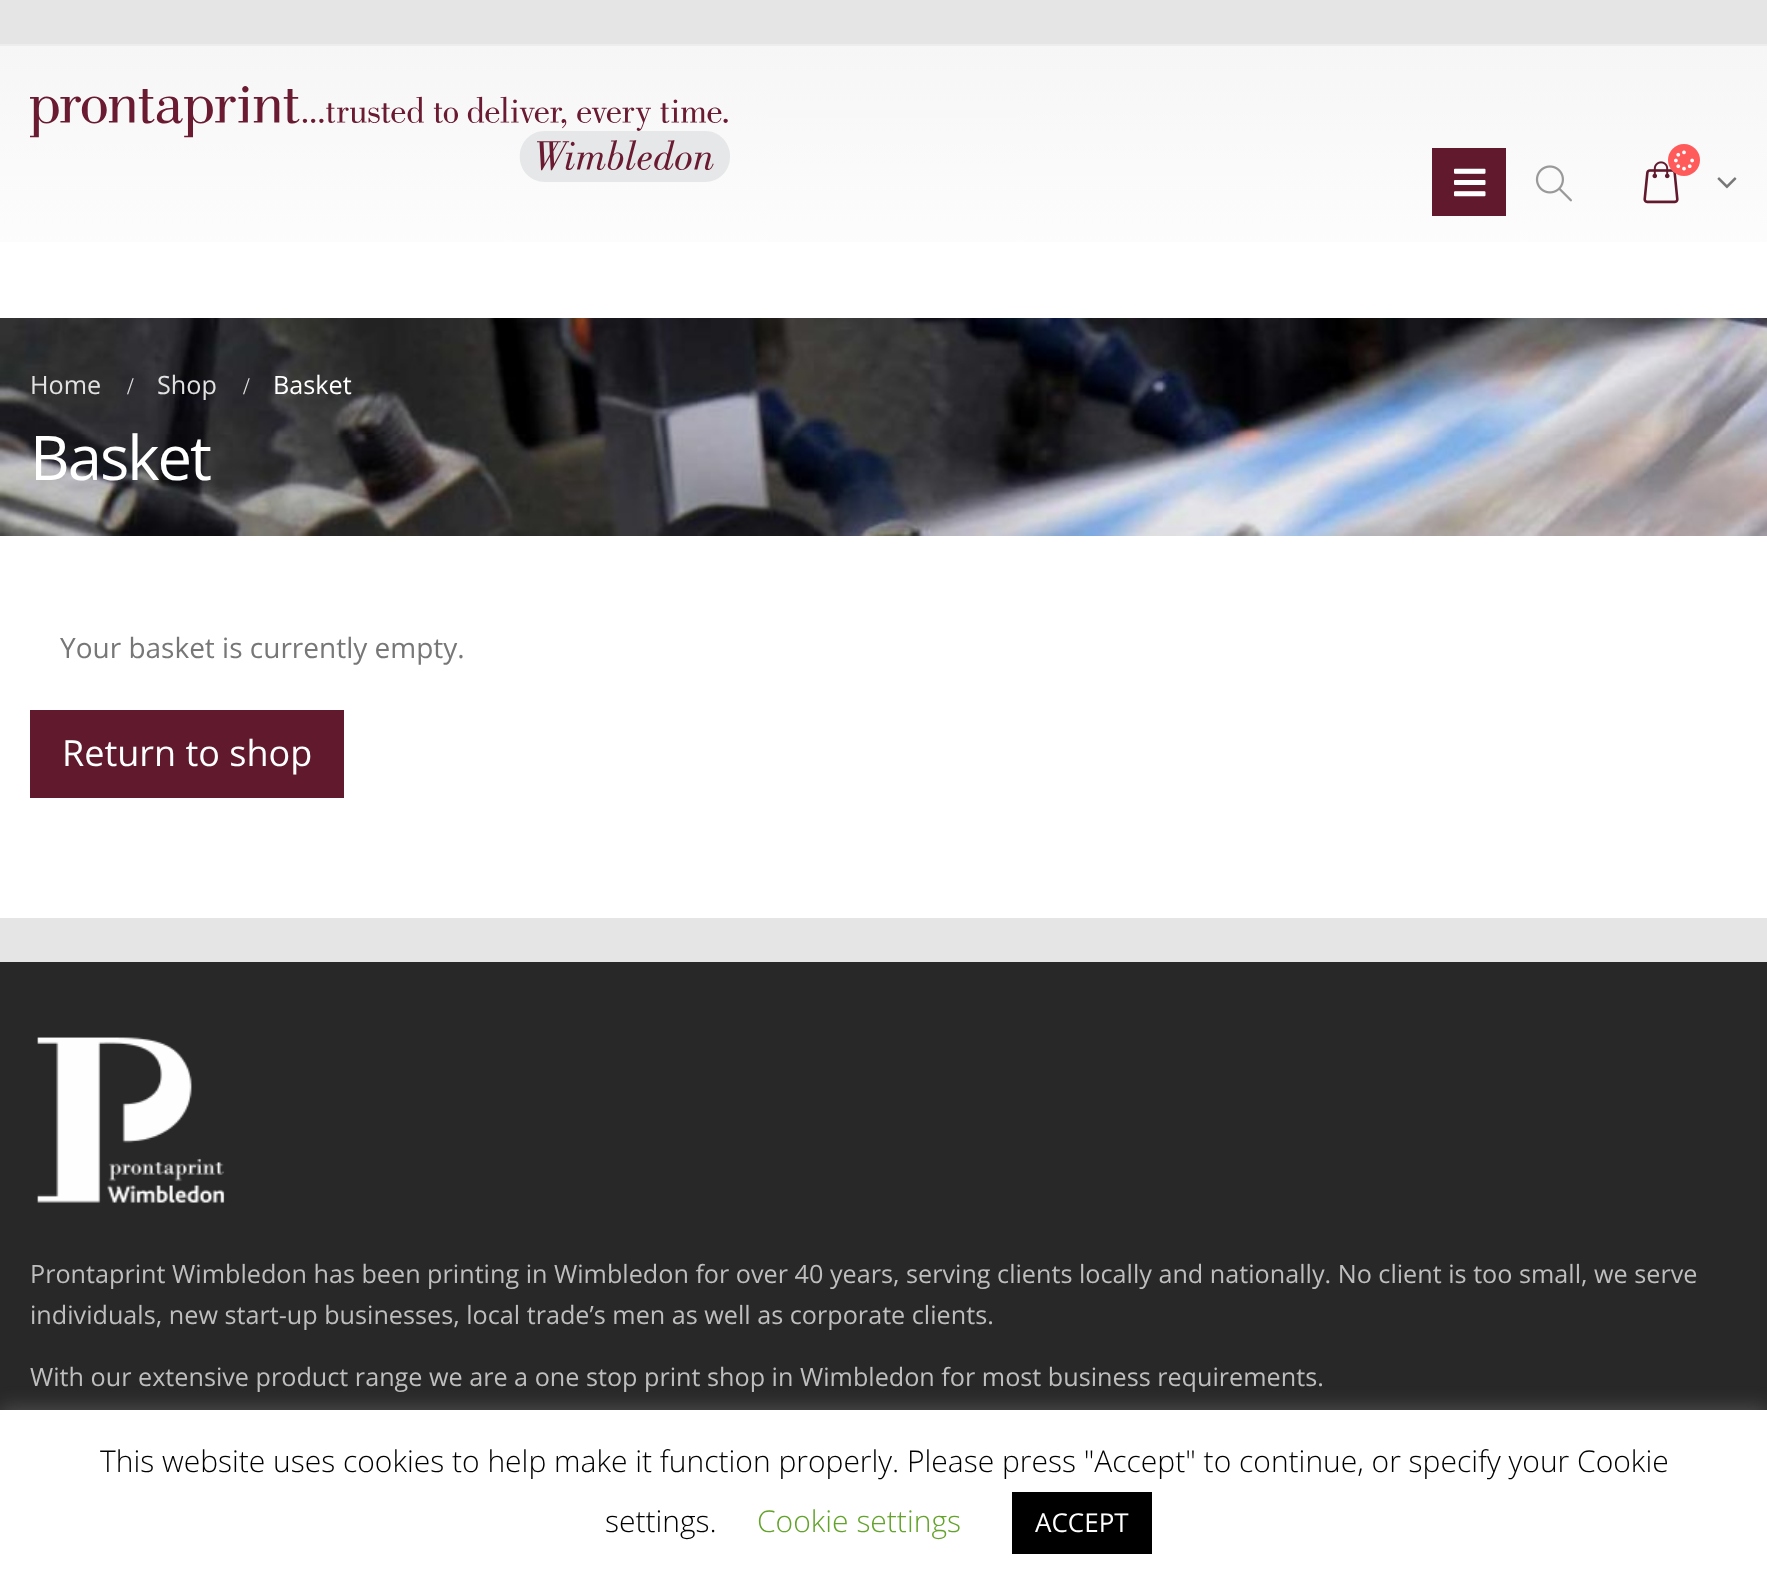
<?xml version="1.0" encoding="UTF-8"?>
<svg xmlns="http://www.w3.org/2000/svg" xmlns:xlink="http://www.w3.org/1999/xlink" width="1767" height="1588">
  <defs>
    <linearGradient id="g1" gradientUnits="userSpaceOnUse" x1="884" y1="46" x2="884" y2="318"><stop offset="0" stop-color="#f6f6f6" /><stop offset="1" stop-color="#ffffff" /></linearGradient>
  </defs>
  <rect width="100%" height="100%" fill="#ffffff" />
  <rect width="1767" height="44" fill="#e5e5e5" />
  <rect y="44" width="1767" height="2" fill="#ededed" />
  <rect y="46" width="1767" height="196" fill="url(#g1)" />
  <image x="30" y="86" width="700" height="96" xlink:href="image1.png" />
  <rect x="1432" y="148" width="74" height="68" fill="#61192d" />
  <image x="1454" y="168" width="32" height="29" xlink:href="image2.png" />
  <image x="1535" y="165" width="37" height="37" xlink:href="image3.png" />
  <image x="1643" y="161" width="36" height="43" xlink:href="image4.png" />
  <circle cx="1684" cy="160" r="16" fill="#ff5b5b" />
  <image x="1674" y="150" width="20" height="21" xlink:href="image5.png" />
  <image x="1717" y="177" width="20" height="12" xlink:href="image6.png" />
  <image x="0" y="318" width="1767" height="218" xlink:href="image7.png" />
  <rect x="30" y="710" width="314" height="88" fill="#61192d" />
  <rect y="918" width="1767" height="44" fill="#e5e5e5" />
  <rect y="962" width="1767" height="448" fill="#282828" />
  <image x="37" y="1037" width="188" height="166" xlink:href="image8.png" />
  <rect y="1408" width="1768" height="178" fill="#acabab" fill-opacity="0.3" filter="blur(10px)" />
  <rect y="1410" width="1767" height="178" fill="#ffffff" />
  <rect x="1012" y="1492" width="140" height="62" fill="#000000" />
  <text x="30" y="394" style="font-family: Open Sans; font-size: 25.2px; fill: #e2e2e2">Home</text>
  <text x="127" y="394" style="font-family: Liberation Serif; font-size: 24px; fill: #e2e2e2">/</text>
  <text x="157" y="394" style="font-family: Open Sans; font-size: 25.2px; fill: #e2e2e2">Shop</text>
  <text x="243" y="394" style="font-family: Liberation Serif; font-size: 24px; fill: #e2e2e2">/</text>
  <text x="273" y="394" style="font-family: Open Sans; font-size: 25.2px; fill: #ffffff">Basket</text>
  <text x="30" y="480" style="font-family: Open Sans; font-size: 61.5px; letter-spacing: -2px; fill: #ffffff">Basket</text>
  <text x="60" y="658" style="font-family: Open Sans; font-size: 28px; fill: #777777">Your basket is currently empty.</text>
  <text x="62" y="766" style="font-family: Open Sans; font-size: 36px; fill: #ffffff">Return to shop</text>
  <text x="30" y="1283" style="font-family: Open Sans; font-size: 25.2px; fill: #bebebe">Prontaprint Wimbledon has been printing in Wimbledon for over 40 years, serving clients locally and nationally. No client is too small, we serve</text>
  <text x="30" y="1324" style="font-family: Open Sans; font-size: 25.2px; fill: #bebebe">individuals, new start-up businesses, local trade’s men as well as corporate clients.</text>
  <text x="30" y="1386" style="font-family: Open Sans; font-size: 25.2px; fill: #bebebe">With our extensive product range we are a one stop print shop in Wimbledon for most business requirements.</text>
  <text x="100" y="1472" style="font-family: Open Sans; font-size: 30px; font-weight: 300; fill: #000000">This website uses cookies to help make it function properly. Please press "Accept" to continue, or specify your Cookie</text>
  <text x="605" y="1532" style="font-family: Open Sans; font-size: 30px; font-weight: 300; fill: #000000">settings.</text>
  <text x="757" y="1532" style="font-family: Open Sans; font-size: 30px; font-weight: 300; fill: #62a329">Cookie settings</text>
  <text x="1035" y="1532" style="font-family: Open Sans; font-size: 26px; fill: #ffffff">ACCEPT</text>
</svg>
